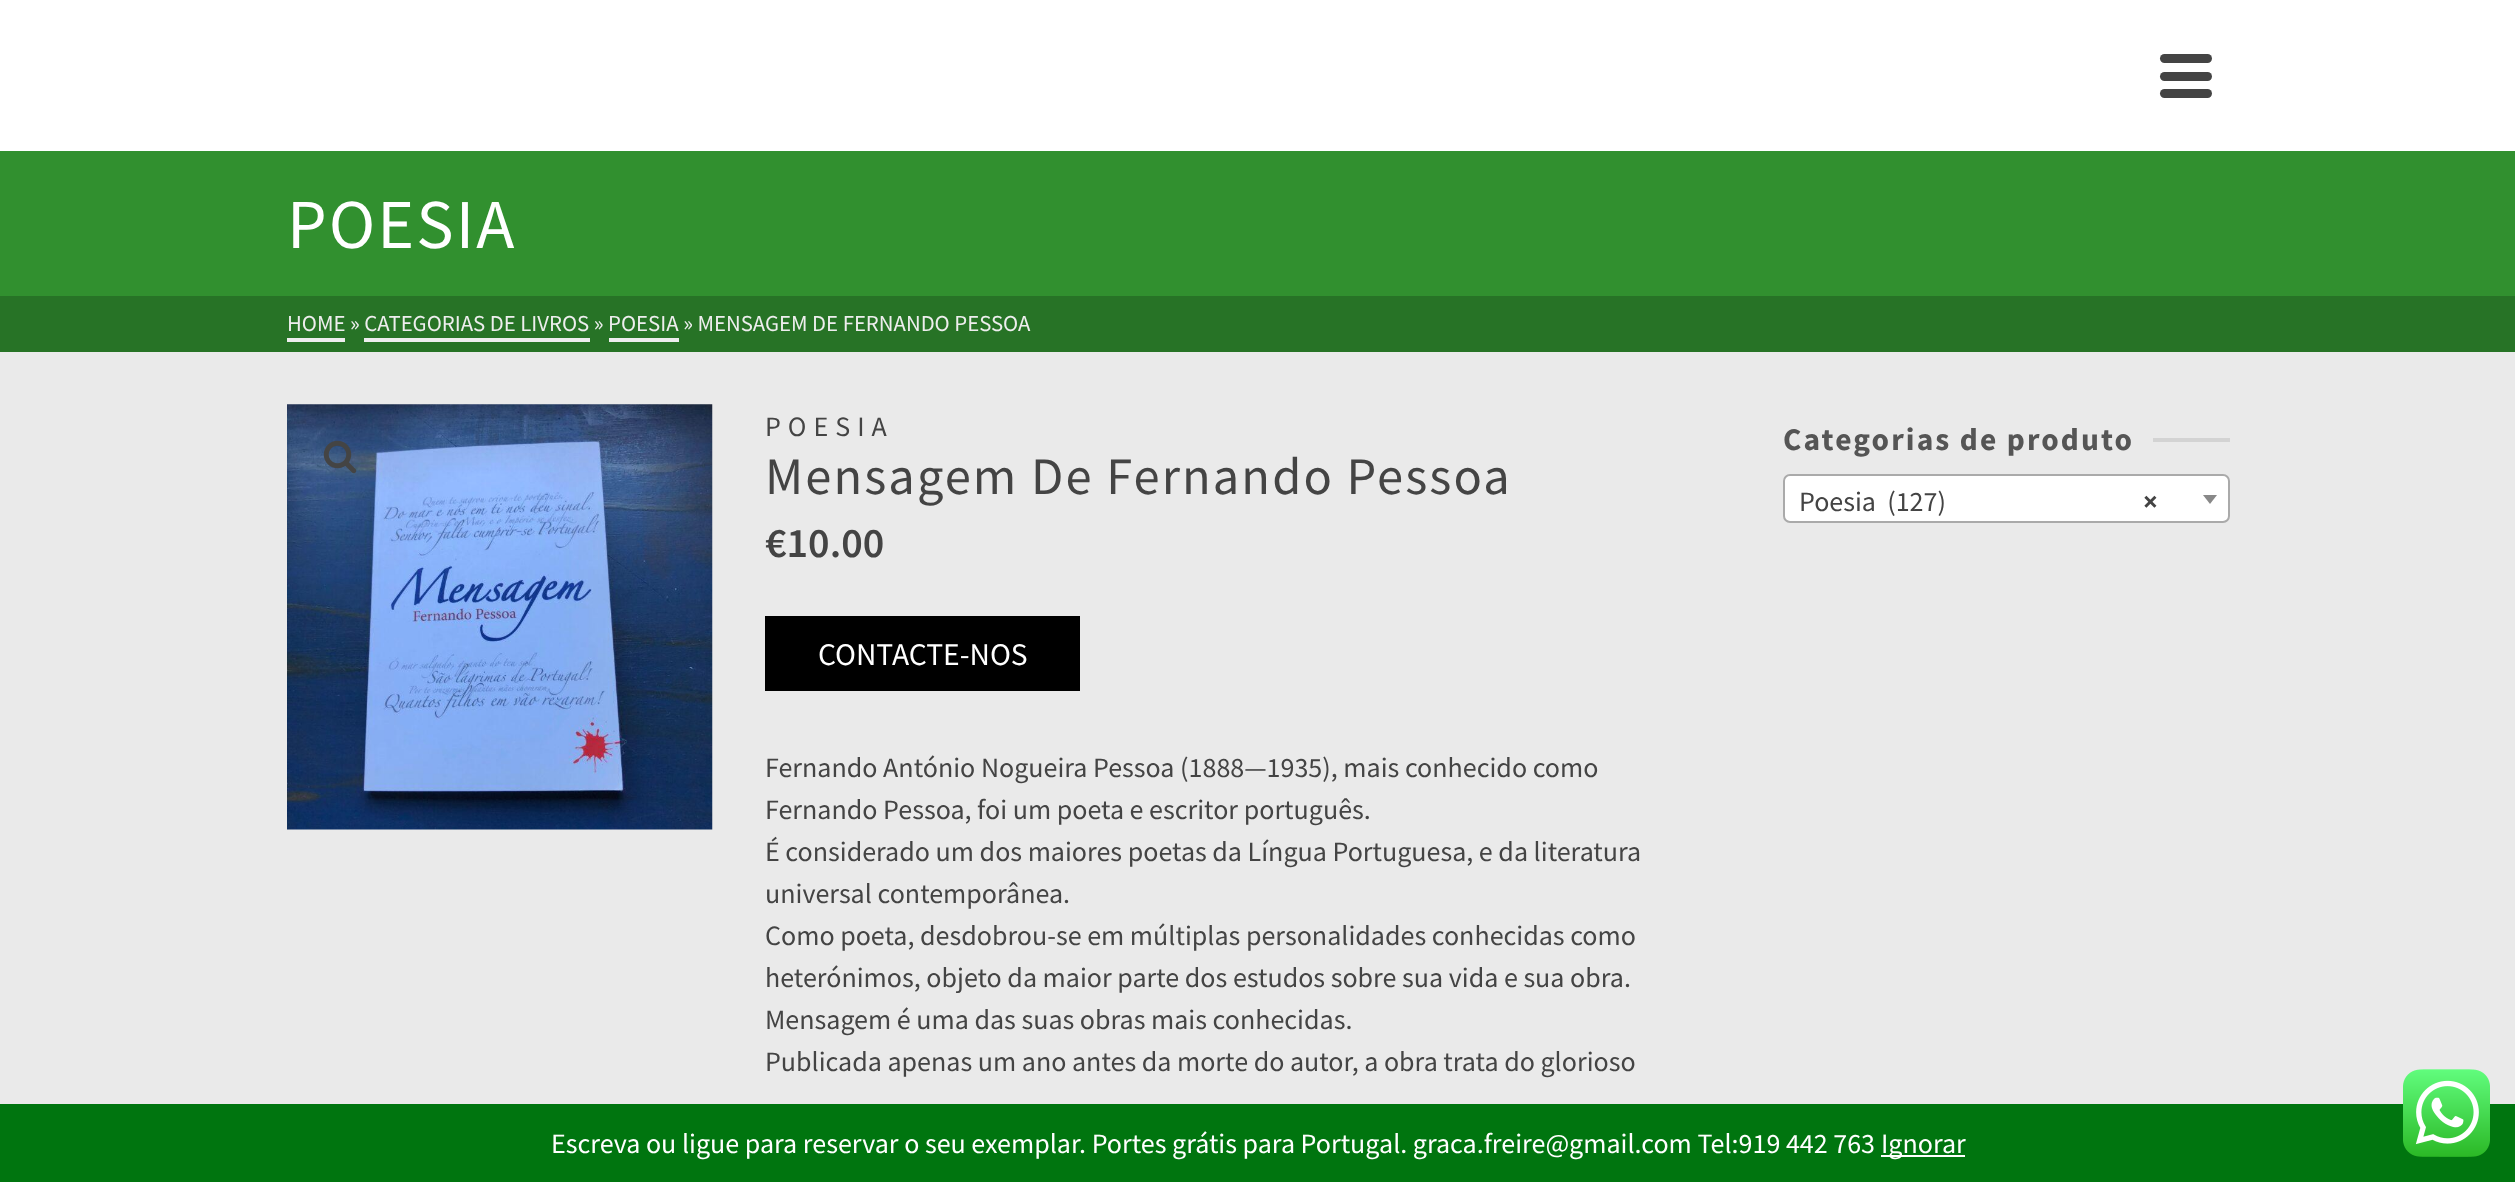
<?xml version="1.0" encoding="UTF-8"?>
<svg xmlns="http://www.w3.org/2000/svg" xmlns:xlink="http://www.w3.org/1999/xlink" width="2515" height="1182">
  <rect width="100%" height="100%" fill="#ffffff" />
  <rect x="2160" y="54" width="52" height="9" rx="4.5" fill="#444444" />
  <rect x="2160" y="72" width="52" height="9" rx="4.5" fill="#444444" />
  <rect x="2160" y="89" width="52" height="9" rx="4.5" fill="#444444" />
  <rect y="352" width="2515" height="752" fill="#eaeaea" />
  <rect y="151" width="2515" height="145" fill="#31902f" />
  <rect y="296" width="2515" height="56" fill="#277326" />
  <rect x="287" y="338" width="58" height="4" fill="#eeeeee" />
  <rect x="364" y="338" width="226" height="4" fill="#eeeeee" />
  <rect x="609" y="338" width="70" height="4" fill="#eeeeee" />
  <image x="287" y="404" width="426" height="426" xlink:href="image1.png" />
  <image x="323" y="440" width="34" height="34" xlink:href="image2.png" />
  <rect x="765" y="616" width="315" height="75" fill="#000000" />
  <rect x="2153" y="438" width="77" height="4" fill="#d3d3d3" />
  <rect x="1784" y="475" width="445" height="47" rx="6" fill="#ffffff" stroke="#aaaaaa" stroke-width="2" />
  <path d="M 2203 495 h 14 l -7 9 z" fill="#888888" />
  <rect y="1104" width="2515" height="78" fill="#00750f" />
  <rect x="1881" y="1155" width="84" height="2" fill="#ffffff" />
  <image x="2403" y="1069" width="87" height="88" xlink:href="image3.png" />
  <text x="287" y="248" style="font-family: Source Sans Pro; font-size: 70px; letter-spacing: 2.1px; fill: #ffffff">POESIA</text>
  <text x="287" y="331" style="font-family: Source Sans Pro; font-size: 22.75px; fill: #eeeeee">HOME » CATEGORIAS DE LIVROS » POESIA » MENSAGEM DE FERNANDO PESSOA</text>
  <text x="765" y="436" style="font-family: Source Sans Pro; font-size: 28px; letter-spacing: 7px; fill: #444444">POESIA</text>
  <text x="765" y="494" style="font-family: Source Sans Pro; font-size: 52.5px; letter-spacing: 2.1px; fill: #444444">Mensagem De Fernando Pessoa</text>
  <text x="765" y="557" style="font-family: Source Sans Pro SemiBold; font-size: 42px; font-weight: 600; fill: #444444">€10.00</text>
  <text x="818" y="665" style="font-family: Source Sans Pro; font-size: 31.5px; fill: #ffffff">CONTACTE-NOS</text>
  <text x="765" y="777" style="font-family: Source Sans Pro; font-size: 28px; fill: #444444">Fernando António Nogueira Pessoa (1888—1935), mais conhecido como</text>
  <text x="765" y="819" style="font-family: Source Sans Pro; font-size: 28px; fill: #444444">Fernando Pessoa, foi um poeta e escritor português.</text>
  <text x="765" y="861" style="font-family: Source Sans Pro; font-size: 28px; fill: #444444">É considerado um dos maiores poetas da Língua Portuguesa, e da literatura</text>
  <text x="765" y="903" style="font-family: Source Sans Pro; font-size: 28px; fill: #444444">universal contemporânea.</text>
  <text x="765" y="945" style="font-family: Source Sans Pro; font-size: 28px; fill: #444444">Como poeta, desdobrou-se em múltiplas personalidades conhecidas como</text>
  <text x="765" y="987" style="font-family: Source Sans Pro; font-size: 28px; fill: #444444">heterónimos, objeto da maior parte dos estudos sobre sua vida e sua obra.</text>
  <text x="765" y="1029" style="font-family: Source Sans Pro; font-size: 28px; fill: #444444">Mensagem é uma das suas obras mais conhecidas.</text>
  <text x="765" y="1071" style="font-family: Source Sans Pro; font-size: 28px; fill: #444444">Publicada apenas um ano antes da morte do autor, a obra trata do glorioso</text>
  <text x="1783" y="450" style="font-family: Source Sans Pro; font-size: 31.5px; font-weight: bold; letter-spacing: 2.1px; fill: #555555">Categorias de produto</text>
  <text x="1799" y="511" style="font-family: Source Sans Pro; font-size: 28px; fill: #444444" xml:space="preserve">Poesia  (127)</text>
  <text x="2143" y="511" style="font-family: Source Sans Pro; font-size: 28px; font-weight: bold; fill: #444444">×</text>
  <text x="551" y="1153" style="font-family: Source Sans Pro; font-size: 28px; fill: #ffffff">Escreva ou ligue para reservar o seu exemplar. Portes grátis para Portugal. graca.freire@gmail.com Tel:919 442 763</text>
  <text x="1881" y="1153" style="font-family: Source Sans Pro; font-size: 28px; fill: #ffffff">Ignorar</text>
</svg>
